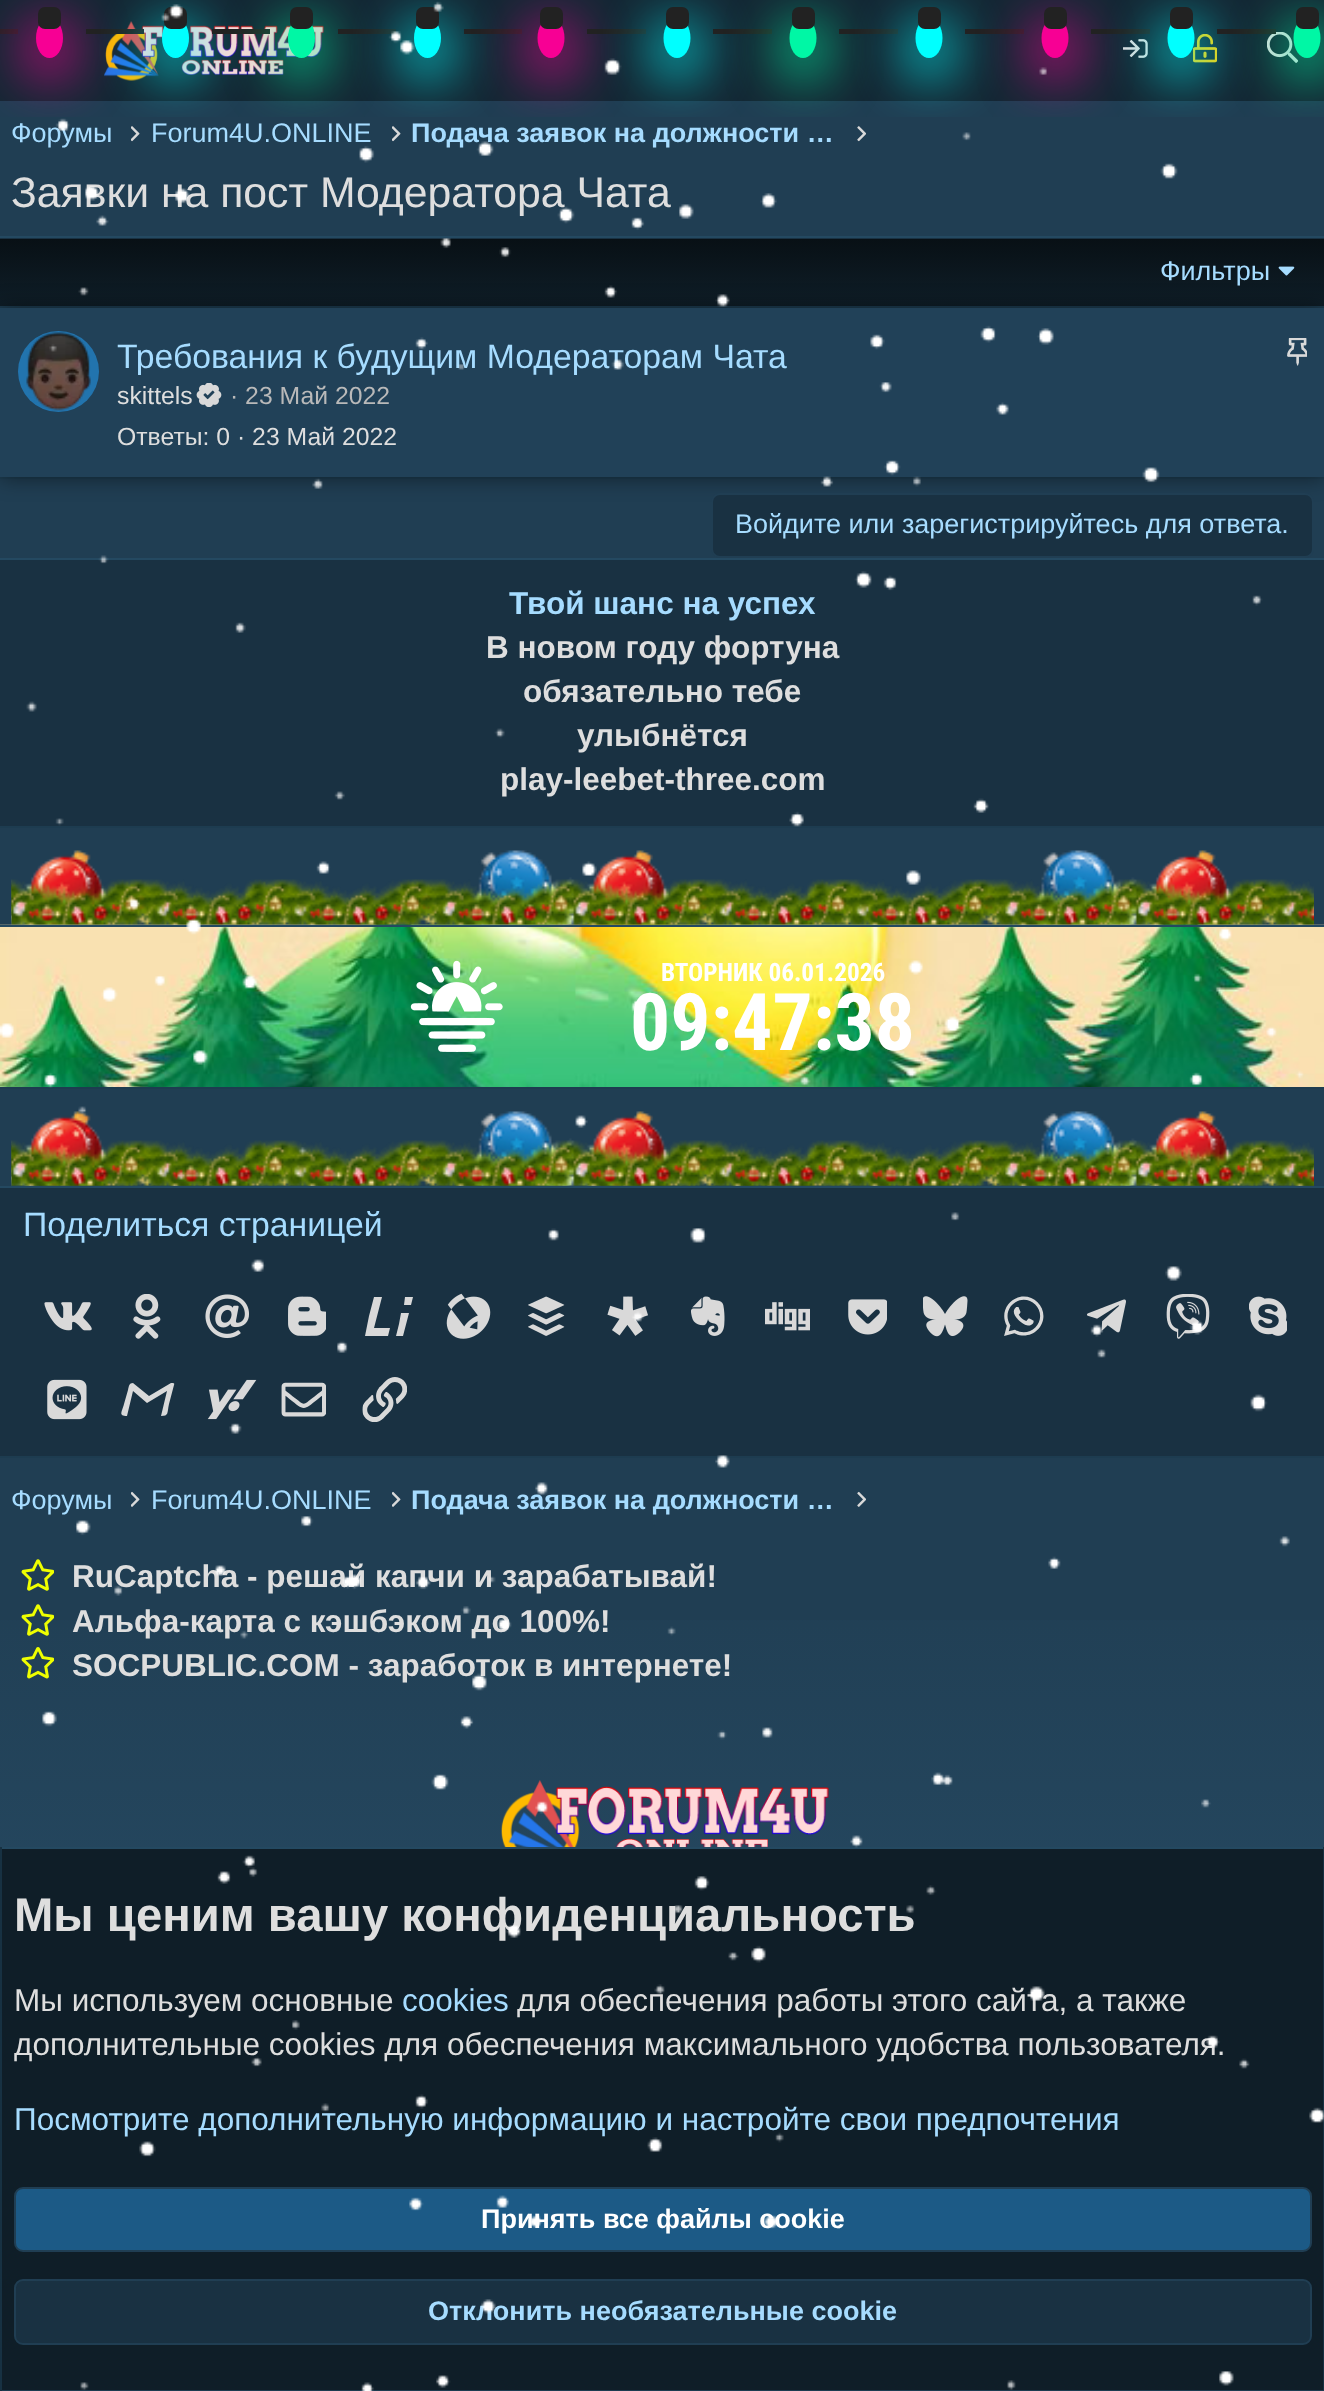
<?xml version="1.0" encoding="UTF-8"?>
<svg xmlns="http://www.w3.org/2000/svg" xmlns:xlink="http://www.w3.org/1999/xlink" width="1324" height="2391">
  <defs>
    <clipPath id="clip1"><rect x="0" y="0" width="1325" height="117" /></clipPath>
    <linearGradient id="g1" gradientUnits="userSpaceOnUse" x1="663" y1="306" x2="663" y2="239"><stop offset="0" stop-color="#0f1e28" /><stop offset="1" stop-color="#081015" /></linearGradient>
    <linearGradient id="g2" gradientUnits="userSpaceOnUse" x1="663" y1="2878" x2="663" y2="1544"><stop offset="0" stop-color="#315f7f" /><stop offset="1" stop-color="#203e53" /></linearGradient>
  </defs>
  <rect width="100%" height="100%" fill="#203e53" />
  <rect width="1324" height="101" fill="#142734" />
  <rect y="29" width="18" height="5" fill="#222222" />
  <image x="104" y="21" width="220" height="60" xlink:href="image2.png" />
  <image x="131" y="126" width="9" height="16" xlink:href="image6.png" />
  <g clip-path="url(#clip1)">
    <rect x="29" y="23" width="41" height="54" rx="20.5" fill="#f70094" filter="blur(27px)" />
  </g>
  <ellipse cx="49.5" cy="38" rx="13.5" ry="20" fill="#f70094" />
  <rect x="38" y="7" width="23" height="22" rx="7" fill="#222222" />
  <rect x="86" y="29" width="58" height="5" fill="#222222" />
  <g clip-path="url(#clip1)">
    <rect x="155" y="23" width="41" height="54" rx="20.5" fill="#00ffff" filter="blur(27px)" />
  </g>
  <ellipse cx="175.5" cy="38" rx="13.5" ry="20" fill="#00ffff" />
  <rect x="164" y="7" width="23" height="22" rx="7" fill="#222222" />
  <rect x="212" y="29" width="58" height="5" fill="#222222" />
  <image x="392" y="126" width="9" height="16" xlink:href="image6.png" />
  <g clip-path="url(#clip1)">
    <rect x="281" y="23" width="41" height="54" rx="20.5" fill="#00f7a5" filter="blur(27px)" />
  </g>
  <ellipse cx="301.5" cy="38" rx="13.5" ry="20" fill="#00f7a5" />
  <rect x="290" y="7" width="23" height="22" rx="7" fill="#222222" />
  <rect x="338" y="29" width="58" height="5" fill="#222222" />
  <g clip-path="url(#clip1)">
    <rect x="407" y="23" width="41" height="54" rx="20.5" fill="#00ffff" filter="blur(27px)" />
  </g>
  <ellipse cx="427.5" cy="38" rx="13.5" ry="20" fill="#00ffff" />
  <rect x="416" y="7" width="23" height="22" rx="7" fill="#222222" />
  <rect x="464" y="29" width="58" height="5" fill="#222222" />
  <g clip-path="url(#clip1)">
    <rect x="531" y="23" width="41" height="54" rx="20.5" fill="#f70094" filter="blur(27px)" />
  </g>
  <ellipse cx="551" cy="38" rx="13.5" ry="20" fill="#f70094" />
  <rect x="540" y="7" width="23" height="22" rx="7" fill="#222222" />
  <rect x="587" y="29" width="59" height="5" fill="#222222" />
  <g clip-path="url(#clip1)">
    <rect x="657" y="23" width="41" height="54" rx="20.5" fill="#00ffff" filter="blur(27px)" />
  </g>
  <ellipse cx="677" cy="38" rx="13.5" ry="20" fill="#00ffff" />
  <rect x="666" y="7" width="23" height="22" rx="7" fill="#222222" />
  <rect x="713" y="29" width="59" height="5" fill="#222222" />
  <image x="857" y="126" width="9" height="16" xlink:href="image7.png" />
  <g clip-path="url(#clip1)">
    <rect x="783" y="23" width="41" height="54" rx="20.5" fill="#00f7a5" filter="blur(27px)" />
  </g>
  <ellipse cx="803" cy="38" rx="13.5" ry="20" fill="#00f7a5" />
  <rect x="792" y="7" width="23" height="22" rx="7" fill="#222222" />
  <rect x="839" y="29" width="59" height="5" fill="#222222" />
  <g clip-path="url(#clip1)">
    <rect x="909" y="23" width="41" height="54" rx="20.5" fill="#00ffff" filter="blur(27px)" />
  </g>
  <ellipse cx="929" cy="38" rx="13.5" ry="20" fill="#00ffff" />
  <rect x="918" y="7" width="23" height="22" rx="7" fill="#222222" />
  <rect x="965" y="29" width="59" height="5" fill="#222222" />
  <image x="1123" y="39" width="25" height="19" xlink:href="image3.png" />
  <g clip-path="url(#clip1)">
    <rect x="1035" y="23" width="41" height="54" rx="20.5" fill="#f70094" filter="blur(27px)" />
  </g>
  <ellipse cx="1055" cy="38" rx="13.5" ry="20" fill="#f70094" />
  <rect x="1044" y="7" width="23" height="22" rx="7" fill="#222222" />
  <rect x="1091" y="29" width="59" height="5" fill="#222222" />
  <image x="1193" y="34" width="24" height="29" xlink:href="image4.png" />
  <image x="1267" y="32" width="31" height="31" xlink:href="image5.png" />
  <g clip-path="url(#clip1)">
    <rect x="1161" y="23" width="41" height="54" rx="20.5" fill="#00ffff" filter="blur(27px)" />
  </g>
  <ellipse cx="1181" cy="38" rx="13.5" ry="20" fill="#00ffff" />
  <rect x="1170" y="7" width="23" height="22" rx="7" fill="#222222" />
  <rect x="1217" y="29" width="59" height="5" fill="#222222" />
  <g clip-path="url(#clip1)">
    <rect x="1287" y="23" width="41" height="54" rx="20.5" fill="#00f7a5" filter="blur(27px)" />
  </g>
  <ellipse cx="1307" cy="38" rx="13.5" ry="20" fill="#00f7a5" />
  <rect x="1296" y="7" width="23" height="22" rx="7" fill="#222222" />
  <rect y="238" width="1324" height="1" fill="#193142" />
  <rect y="236" width="1324" height="2" fill="#244961" />
  <rect y="477" width="1324" height="2" fill="#1d3c50" />
  <rect y="239" width="1324" height="67" fill="url(#g1)" />
  <rect y="306" width="1324" height="2" fill="#1d3c50" />
  <rect y="308" width="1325" height="169" fill="#000000" fill-opacity="0.5" filter="blur(11px)" />
  <image x="1278" y="266" width="17" height="10" xlink:href="image8.png" />
  <rect y="308" width="1324" height="169" fill="#214158" />
  <circle cx="58.5" cy="371.5" r="40.5" fill="#2274ae" />
  <image x="26" y="332" width="65" height="79" xlink:href="image9.png" />
  <image x="1287" y="338" width="20" height="28" xlink:href="image10.png" />
  <image x="196" y="383" width="26" height="24" xlink:href="image11.png" />
  <rect x="712" y="494" width="601" height="63" rx="8" fill="#193142" stroke="#203e53" stroke-width="2" />
  <rect y="560" width="1324" height="266" fill="#193142" />
  <rect y="558" width="1324" height="2" fill="#244961" />
  <rect y="826" width="1324" height="2" fill="#1d3c50" />
  <image x="11" y="850" width="1303" height="75" xlink:href="image12.png" />
  <image x="0" y="924" width="1324" height="163" xlink:href="image13.png" />
  <rect y="925" width="1324" height="2" fill="#244961" />
  <rect y="1087" width="1324" height="2" fill="#1d3c50" />
  <image x="410" y="960" width="93" height="92" xlink:href="image14.png" />
  <image x="11" y="1111" width="1303" height="75" xlink:href="image15.png" />
  <rect y="1188" width="1324" height="268" fill="#193142" />
  <rect y="1186" width="1324" height="2" fill="#244961" />
  <rect y="1456" width="1324" height="2" fill="#1d3c50" />
  <image x="44" y="1302" width="48" height="29" xlink:href="image16.png" />
  <image x="133" y="1294" width="28" height="45" xlink:href="image17.png" />
  <image x="205" y="1294" width="44" height="45" xlink:href="image18.png" />
  <image x="288" y="1296" width="38" height="40" xlink:href="image19.png" />
  <path d="M 369 1316 l 5 -19 h 8 l -8 31 h 16 l -2 8 h -23 z m 30 8 l 2 -11 h 8 l -6 23 h -7 z m 5 -19 l 1 -8 h 8 l -2 8 z" fill="#d9d9d9" />
  <image x="446" y="1293" width="45" height="46" xlink:href="image20.png" />
  <image x="528" y="1296" width="37" height="40" xlink:href="image21.png" />
  <image x="607" y="1296" width="41" height="40" xlink:href="image22.png" />
  <image x="691" y="1296" width="34" height="40" xlink:href="image23.png" />
  <image x="765" y="1302" width="45" height="29" xlink:href="image24.png" />
  <image x="848" y="1299" width="39" height="36" xlink:href="image25.png" />
  <image x="923" y="1296" width="45" height="41" xlink:href="image26.png" />
  <image x="1004" y="1296" width="40" height="40" xlink:href="image27.png" />
  <image x="1087" y="1299" width="39" height="34" xlink:href="image28.png" />
  <image x="1166" y="1294" width="44" height="45" xlink:href="image29.png" />
  <image x="1249" y="1296" width="38" height="40" xlink:href="image30.png" />
  <image x="47" y="1379" width="40" height="41" xlink:href="image31.png" />
  <path d="M 174 1385 l -5 19 c -2 9 0 12 -8 12 l 6 -25 l -20 12 l -14 -12 l -6 25 c -9 0 -5 -4 -3 -12 l 4 -14 c 1 -4 1 -7 5 -7 l 16 13 l 22 -13 c 2 0 4 0 3 2 z" fill="#d9d9d9" />
  <image x="207" y="1379" width="50" height="41" xlink:href="image32.png" />
  <image x="281" y="1382" width="45" height="35" xlink:href="image33.png" />
  <image x="362" y="1377" width="45" height="45" xlink:href="image34.png" />
  <image x="131" y="1491" width="9" height="16" xlink:href="image35.png" />
  <image x="392" y="1491" width="9" height="16" xlink:href="image35.png" />
  <image x="857" y="1491" width="9" height="16" xlink:href="image36.png" />
  <rect y="1620" width="1324" height="227" fill="url(#g2)" />
  <image x="21" y="1559" width="33" height="32" xlink:href="image37.png" />
  <image x="21" y="1604" width="33" height="32" xlink:href="image38.png" />
  <image x="21" y="1647" width="33" height="32" xlink:href="image39.png" />
  <image x="501" y="1780" width="328" height="67" xlink:href="image40.png" />
  <rect x="2" y="1849" width="1321" height="541" fill="#0f1e28" />
  <rect y="1847" width="1324" height="2" fill="#244961" />
  <rect x="1323" y="1847" width="1" height="544" fill="#173142" />
  <rect y="2390" width="1324" height="1" fill="#1d3c50" />
  <rect y="1847" width="2" height="544" fill="#173142" />
  <rect x="15" y="2188" width="1296" height="63" rx="8" fill="#1c5a86" stroke="#203e53" stroke-width="2" />
  <rect x="15" y="2280" width="1296" height="64" rx="8" fill="#193142" stroke="#203e53" stroke-width="2" />
  <text x="11" y="142" style="font-family: Liberation Sans; font-size: 27px; fill: #a6dcff">Форумы</text>
  <text x="151" y="142" style="font-family: Liberation Sans; font-size: 27px; fill: #a6dcff">Forum4U.ONLINE</text>
  <text x="411" y="142" style="font-family: Liberation Sans; font-size: 27px; font-weight: bold; fill: #a6dcff">Подача заявок на должности …</text>
  <text x="11" y="207" style="font-family: Liberation Sans; font-size: 42.75px; fill: #dedede">Заявки на пост Модератора Чата</text>
  <text x="1160" y="280" style="font-family: Liberation Sans; font-size: 27px; fill: #a6dcff">Фильтры</text>
  <text x="117" y="368" style="font-family: Liberation Sans; font-size: 33.75px; fill: #a6dcff">Требования к будущим Модераторам Чата</text>
  <text x="117" y="404" style="font-family: Liberation Sans; font-size: 24.75px; fill: #dedede">skittels</text>
  <text x="230" y="404" style="font-family: Liberation Sans; font-size: 24.75px; fill: #b9b9b9">· 23 Май 2022</text>
  <text x="117" y="445" style="font-family: Liberation Sans; font-size: 24.75px; fill: #dedede">Ответы: 0</text>
  <text x="237" y="445" style="font-family: Liberation Sans; font-size: 24.75px; fill: #dedede">· 23 Май 2022</text>
  <text x="735" y="533" style="font-family: Liberation Sans; font-size: 27px; fill: #a6dcff">Войдите или зарегистрируйтесь для ответа.</text>
  <text x="509" y="614" style="font-family: Liberation Sans; font-size: 31.5px; font-weight: bold; fill: #a6dcff">Твой шанс на успех</text>
  <text x="486" y="658" style="font-family: Liberation Sans; font-size: 31.5px; font-weight: bold; fill: #dedede">В новом году фортуна</text>
  <text x="523" y="702" style="font-family: Liberation Sans; font-size: 31.5px; font-weight: bold; fill: #dedede">обязательно тебе</text>
  <text x="577" y="746" style="font-family: Liberation Sans; font-size: 31.5px; font-weight: bold; fill: #dedede">улыбнётся</text>
  <text x="500" y="790" style="font-family: Liberation Sans; font-size: 31.5px; font-weight: bold; fill: #dedede">play-leebet-three.com</text>
  <text x="661" y="981" style="font-family: Roboto Condensed; font-size: 25.25px; font-weight: bold; fill: #ffffff">ВТОРНИК 06.01.2026</text>
  <text x="630" y="1050" style="font-family: Roboto Condensed; font-size: 79.5px; font-weight: bold; fill: #ffffff">09:47:38</text>
  <text x="23" y="1236" style="font-family: Liberation Sans; font-size: 33.75px; fill: #a6dcff">Поделиться страницей</text>
  <text x="11" y="1509" style="font-family: Liberation Sans; font-size: 27px; fill: #a6dcff">Форумы</text>
  <text x="151" y="1509" style="font-family: Liberation Sans; font-size: 27px; fill: #a6dcff">Forum4U.ONLINE</text>
  <text x="411" y="1509" style="font-family: Liberation Sans; font-size: 27px; font-weight: bold; fill: #a6dcff">Подача заявок на должности …</text>
  <text x="72" y="1587" style="font-family: Liberation Sans; font-size: 31.5px; font-weight: bold; fill: #dedede">RuCaptcha - решай капчи и зарабатывай!</text>
  <text x="72" y="1632" style="font-family: Liberation Sans; font-size: 31.5px; font-weight: bold; fill: #dedede">Альфа-карта с кэшбэком до 100%!</text>
  <text x="72" y="1676" style="font-family: Liberation Sans; font-size: 31.5px; font-weight: bold; fill: #dedede">SOCPUBLIC.COM - заработок в интернете!</text>
  <text x="14" y="1931" style="font-family: Liberation Sans; font-size: 47.25px; font-weight: bold; fill: #dedede">Мы ценим вашу конфиденциальность</text>
  <text x="14" y="2011" style="font-family: Liberation Sans; font-size: 31.5px; fill: #dedede">Мы используем основные</text>
  <text x="402" y="2011" style="font-family: Liberation Sans; font-size: 31.5px; fill: #a6dcff">cookies</text>
  <text x="517" y="2011" style="font-family: Liberation Sans; font-size: 31.5px; fill: #dedede">для обеспечения работы этого сайта, а также</text>
  <text x="14" y="2055" style="font-family: Liberation Sans; font-size: 31.5px; fill: #dedede">дополнительные cookies для обеспечения максимального удобства пользователя.</text>
  <text x="14" y="2130" style="font-family: Liberation Sans; font-size: 31.5px; fill: #a6dcff">Посмотрите дополнительную информацию и настройте свои предпочтения</text>
  <text x="481" y="2228" style="font-family: Liberation Sans; font-size: 27px; font-weight: bold; fill: #ffffff">Принять все файлы cookie</text>
  <text x="428" y="2320" style="font-family: Liberation Sans; font-size: 27px; font-weight: bold; fill: #a6dcff">Отклонить необязательные cookie</text>
  <image x="0" y="1" width="1324" height="2390" xlink:href="image1.png" />
</svg>
